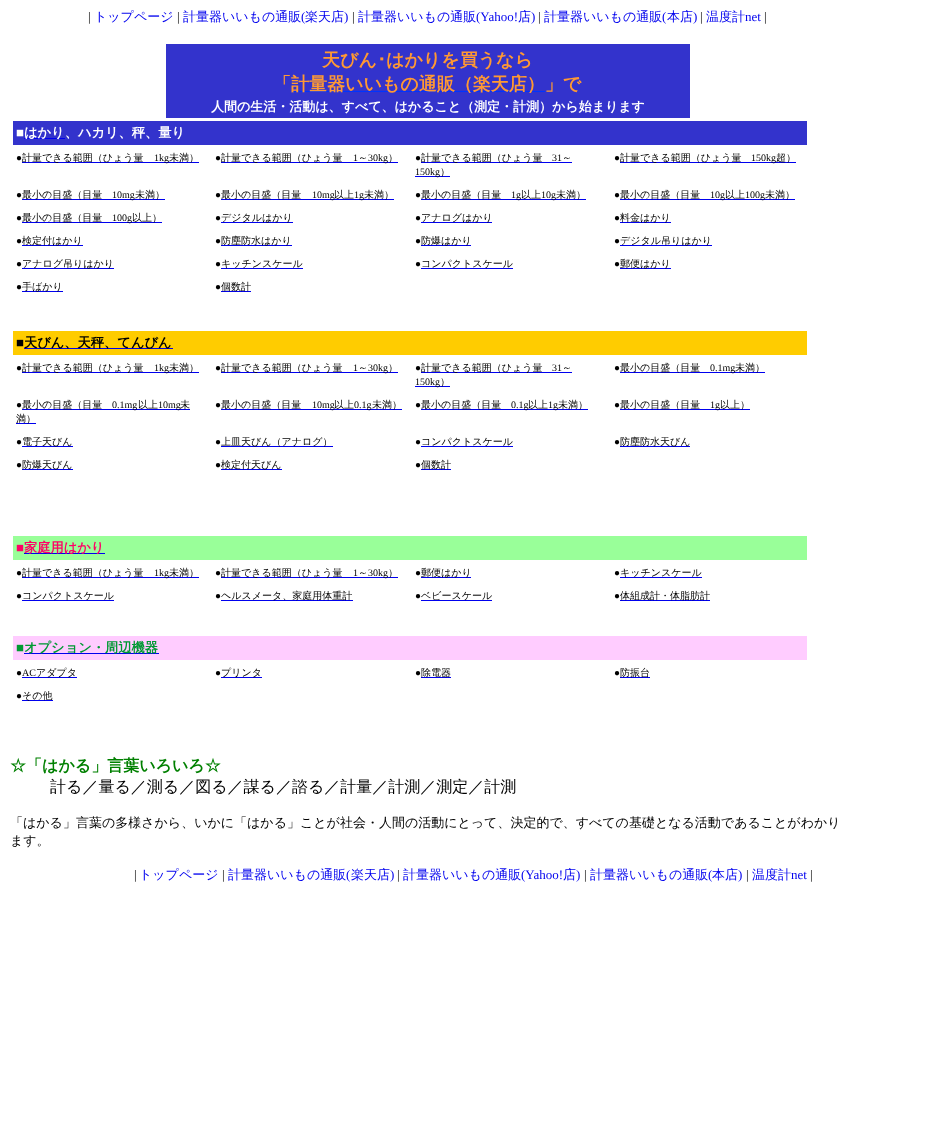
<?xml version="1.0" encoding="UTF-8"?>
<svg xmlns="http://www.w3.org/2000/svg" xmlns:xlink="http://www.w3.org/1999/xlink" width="946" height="1146">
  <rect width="100%" height="100%" fill="#ffffff" />
  <rect x="166" y="44" width="524" height="74" fill="#3333cc" />
  <rect x="291" y="91" width="254" height="1" fill="#0033ff" />
  <rect x="13" y="121" width="794" height="24" fill="#3333cc" />
  <rect x="24" y="138" width="41" height="1" fill="#0000ee" />
  <rect x="22" y="162" width="177" height="1" fill="#0000ee" />
  <rect x="221" y="162" width="177" height="1" fill="#0000ee" />
  <rect x="421" y="162" width="151" height="1" fill="#0000ee" />
  <rect x="415" y="176" width="35" height="1" fill="#0000ee" />
  <rect x="620" y="162" width="176" height="1" fill="#0000ee" />
  <rect x="22" y="199" width="143" height="1" fill="#0000ee" />
  <rect x="221" y="199" width="173" height="1" fill="#0000ee" />
  <rect x="421" y="199" width="165" height="1" fill="#0000ee" />
  <rect x="620" y="199" width="175" height="1" fill="#0000ee" />
  <rect x="22" y="222" width="140" height="1" fill="#0000ee" />
  <rect x="221" y="222" width="72" height="1" fill="#0000ee" />
  <rect x="421" y="222" width="71" height="1" fill="#0000ee" />
  <rect x="620" y="222" width="51" height="1" fill="#0000ee" />
  <rect x="22" y="245" width="61" height="1" fill="#0000ee" />
  <rect x="221" y="245" width="71" height="1" fill="#0000ee" />
  <rect x="421" y="245" width="50" height="1" fill="#0000ee" />
  <rect x="620" y="245" width="92" height="1" fill="#0000ee" />
  <rect x="22" y="268" width="92" height="1" fill="#0000ee" />
  <rect x="221" y="268" width="82" height="1" fill="#0000ee" />
  <rect x="421" y="268" width="92" height="1" fill="#0000ee" />
  <rect x="620" y="268" width="51" height="1" fill="#0000ee" />
  <rect x="22" y="291" width="41" height="1" fill="#0000ee" />
  <rect x="221" y="291" width="30" height="1" fill="#0000ee" />
  <rect x="13" y="331" width="794" height="24" fill="#ffcc00" />
  <rect x="24" y="348" width="149" height="1" fill="#0000ee" />
  <rect x="22" y="372" width="177" height="1" fill="#0000ee" />
  <rect x="221" y="372" width="177" height="1" fill="#0000ee" />
  <rect x="421" y="372" width="151" height="1" fill="#0000ee" />
  <rect x="415" y="386" width="35" height="1" fill="#0000ee" />
  <rect x="620" y="372" width="145" height="1" fill="#0000ee" />
  <rect x="22" y="409" width="168" height="1" fill="#0000ee" />
  <rect x="16" y="423" width="20" height="1" fill="#0000ee" />
  <rect x="221" y="409" width="181" height="1" fill="#0000ee" />
  <rect x="421" y="409" width="167" height="1" fill="#0000ee" />
  <rect x="620" y="409" width="130" height="1" fill="#0000ee" />
  <rect x="22" y="446" width="51" height="1" fill="#0000ee" />
  <rect x="221" y="446" width="112" height="1" fill="#0000ee" />
  <rect x="421" y="446" width="92" height="1" fill="#0000ee" />
  <rect x="620" y="446" width="70" height="1" fill="#0000ee" />
  <rect x="22" y="469" width="51" height="1" fill="#0000ee" />
  <rect x="221" y="469" width="61" height="1" fill="#0000ee" />
  <rect x="421" y="469" width="30" height="1" fill="#0000ee" />
  <rect x="13" y="536" width="794" height="24" fill="#99ff99" />
  <rect x="24" y="553" width="81" height="1" fill="#0000ee" />
  <rect x="22" y="577" width="177" height="1" fill="#0000ee" />
  <rect x="221" y="577" width="177" height="1" fill="#0000ee" />
  <rect x="421" y="577" width="50" height="1" fill="#0000ee" />
  <rect x="620" y="577" width="82" height="1" fill="#0000ee" />
  <rect x="22" y="600" width="92" height="1" fill="#0000ee" />
  <rect x="221" y="600" width="132" height="1" fill="#0000ee" />
  <rect x="421" y="600" width="71" height="1" fill="#0000ee" />
  <rect x="620" y="600" width="90" height="1" fill="#0000ee" />
  <rect x="13" y="636" width="794" height="24" fill="#ffccff" />
  <rect x="24" y="653" width="135" height="1" fill="#0000ee" />
  <rect x="22" y="677" width="55" height="1" fill="#0000ee" />
  <rect x="221" y="677" width="41" height="1" fill="#0000ee" />
  <rect x="421" y="677" width="30" height="1" fill="#0000ee" />
  <rect x="620" y="677" width="30" height="1" fill="#0000ee" />
  <rect x="22" y="700" width="31" height="1" fill="#0000ee" />
  <text x="88" y="21" style="font-family: Liberation Serif; font-size: 13px; fill: #000000">|</text>
  <text x="94" y="21" style="font-family: WenQuanYi Zen Hei; font-size: 13px; font-weight: 500; fill: #0000ee">トップページ</text>
  <text x="177" y="21" style="font-family: Liberation Serif; font-size: 13px; fill: #000000">|</text>
  <text x="183" y="21" style="font-family: WenQuanYi Zen Hei; font-size: 13px; font-weight: 500; fill: #0000ee">計量器いいもの通販</text>
  <text x="301" y="21" style="font-family: Liberation Serif; font-size: 13px; fill: #0000ee">(</text>
  <text x="305" y="21" style="font-family: WenQuanYi Zen Hei; font-size: 13px; font-weight: 500; fill: #0000ee">楽天店</text>
  <text x="344" y="21" style="font-family: Liberation Serif; font-size: 13px; fill: #0000ee">)</text>
  <text x="352" y="21" style="font-family: Liberation Serif; font-size: 13px; fill: #000000">|</text>
  <text x="358" y="21" style="font-family: WenQuanYi Zen Hei; font-size: 13px; font-weight: 500; fill: #0000ee">計量器いいもの通販</text>
  <text x="476" y="21" style="font-family: Liberation Serif; font-size: 13px; fill: #0000ee">(Yahoo!</text>
  <text x="518" y="21" style="font-family: WenQuanYi Zen Hei; font-size: 13px; font-weight: 500; fill: #0000ee">店</text>
  <text x="531" y="21" style="font-family: Liberation Serif; font-size: 13px; fill: #0000ee">)</text>
  <text x="538" y="21" style="font-family: Liberation Serif; font-size: 13px; fill: #000000">|</text>
  <text x="544" y="21" style="font-family: WenQuanYi Zen Hei; font-size: 13px; font-weight: 500; fill: #0000ee">計量器いいもの通販</text>
  <text x="662" y="21" style="font-family: Liberation Serif; font-size: 13px; fill: #0000ee">(</text>
  <text x="667" y="21" style="font-family: WenQuanYi Zen Hei; font-size: 13px; font-weight: 500; fill: #0000ee">本店</text>
  <text x="693" y="21" style="font-family: Liberation Serif; font-size: 13px; fill: #0000ee">)</text>
  <text x="700" y="21" style="font-family: Liberation Serif; font-size: 13px; fill: #000000">|</text>
  <text x="706" y="21" style="font-family: WenQuanYi Zen Hei; font-size: 13px; font-weight: 500; fill: #0000ee">温度計</text>
  <text x="745" y="21" style="font-family: Liberation Serif; font-size: 13px; fill: #0000ee">net</text>
  <text x="764" y="21" style="font-family: Liberation Serif; font-size: 13px; fill: #000000">|</text>
  <text x="322" y="66" style="font-family: WenQuanYi Zen Hei; font-size: 18px; font-weight: bold; fill: #ff9933">天びん</text>
  <text x="377" y="66" style="font-family: IPAPGothic; font-size: 18px; font-weight: bold; fill: #ff9933">･</text>
  <text x="386" y="66" style="font-family: WenQuanYi Zen Hei; font-size: 18px; font-weight: bold; fill: #ff9933">はかりを買うなら</text>
  <text x="273" y="90" style="font-family: WenQuanYi Zen Hei; font-size: 18px; font-weight: bold; fill: #ff9933">「</text>
  <text x="291" y="90" style="font-family: WenQuanYi Zen Hei; font-size: 18px; font-weight: bold; fill: #ff9933">計量器いいもの通販（楽天店）」で</text>
  <text x="211" y="111" style="font-family: WenQuanYi Zen Hei; font-size: 13px; font-weight: bold; fill: #ffffff">人間の生活・活動は、すべて、はかること（測定・計測）から始まります</text>
  <text x="16" y="137" style="font-family: Liberation Serif; font-size: 13.25px; font-weight: bold; fill: #ffffff">■</text>
  <text x="24" y="137" style="font-family: WenQuanYi Zen Hei; font-size: 13.25px; font-weight: bold; fill: #ffffff">はかり、ハカリ、秤、量り</text>
  <text x="16" y="161" style="font-family: Liberation Serif; font-size: 10px; fill: #000000">●</text>
  <text x="22" y="161" style="font-family: WenQuanYi Zen Hei; font-size: 10px; font-weight: 500; fill: #000000">計量できる範囲（ひょう量</text>
  <text x="154" y="161" style="font-family: Liberation Serif; font-size: 10px; fill: #000000">1kg</text>
  <text x="169" y="161" style="font-family: WenQuanYi Zen Hei; font-size: 10px; font-weight: 500; fill: #000000">未満）</text>
  <text x="215" y="161" style="font-family: Liberation Serif; font-size: 10px; fill: #000000">●</text>
  <text x="221" y="161" style="font-family: WenQuanYi Zen Hei; font-size: 10px; font-weight: 500; fill: #000000">計量できる範囲（ひょう量</text>
  <text x="353" y="161" style="font-family: Liberation Serif; font-size: 10px; fill: #000000">1</text>
  <text x="358" y="161" style="font-family: WenQuanYi Zen Hei; font-size: 10px; font-weight: 500; fill: #000000">～</text>
  <text x="368" y="161" style="font-family: Liberation Serif; font-size: 10px; fill: #000000">30kg</text>
  <text x="388" y="161" style="font-family: WenQuanYi Zen Hei; font-size: 10px; font-weight: 500; fill: #000000">）</text>
  <text x="415" y="161" style="font-family: Liberation Serif; font-size: 10px; fill: #000000">●</text>
  <text x="421" y="161" style="font-family: WenQuanYi Zen Hei; font-size: 10px; font-weight: 500; fill: #000000">計量できる範囲（ひょう量</text>
  <text x="552" y="161" style="font-family: Liberation Serif; font-size: 10px; fill: #000000">31</text>
  <text x="562" y="161" style="font-family: WenQuanYi Zen Hei; font-size: 10px; font-weight: 500; fill: #000000">～</text>
  <text x="415" y="175" style="font-family: Liberation Serif; font-size: 10px; fill: #000000">150kg</text>
  <text x="440" y="175" style="font-family: WenQuanYi Zen Hei; font-size: 10px; font-weight: 500; fill: #000000">）</text>
  <text x="614" y="161" style="font-family: Liberation Serif; font-size: 10px; fill: #000000">●</text>
  <text x="620" y="161" style="font-family: WenQuanYi Zen Hei; font-size: 10px; font-weight: 500; fill: #000000">計量できる範囲（ひょう量</text>
  <text x="751" y="161" style="font-family: Liberation Serif; font-size: 10px; fill: #000000">150kg</text>
  <text x="776" y="161" style="font-family: WenQuanYi Zen Hei; font-size: 10px; font-weight: 500; fill: #000000">超）</text>
  <text x="16" y="198" style="font-family: Liberation Serif; font-size: 10px; fill: #000000">●</text>
  <text x="22" y="198" style="font-family: WenQuanYi Zen Hei; font-size: 10px; font-weight: 500; fill: #000000">最小の目盛（目量</text>
  <text x="112" y="198" style="font-family: Liberation Serif; font-size: 10px; fill: #000000">10mg</text>
  <text x="135" y="198" style="font-family: WenQuanYi Zen Hei; font-size: 10px; font-weight: 500; fill: #000000">未満）</text>
  <text x="215" y="198" style="font-family: Liberation Serif; font-size: 10px; fill: #000000">●</text>
  <text x="221" y="198" style="font-family: WenQuanYi Zen Hei; font-size: 10px; font-weight: 500; fill: #000000">最小の目盛（目量</text>
  <text x="312" y="198" style="font-family: Liberation Serif; font-size: 10px; fill: #000000">10mg</text>
  <text x="334" y="198" style="font-family: WenQuanYi Zen Hei; font-size: 10px; font-weight: 500; fill: #000000">以上</text>
  <text x="354" y="198" style="font-family: Liberation Serif; font-size: 10px; fill: #000000">1g</text>
  <text x="364" y="198" style="font-family: WenQuanYi Zen Hei; font-size: 10px; font-weight: 500; fill: #000000">未満）</text>
  <text x="415" y="198" style="font-family: Liberation Serif; font-size: 10px; fill: #000000">●</text>
  <text x="421" y="198" style="font-family: WenQuanYi Zen Hei; font-size: 10px; font-weight: 500; fill: #000000">最小の目盛（目量</text>
  <text x="511" y="198" style="font-family: Liberation Serif; font-size: 10px; fill: #000000">1g</text>
  <text x="521" y="198" style="font-family: WenQuanYi Zen Hei; font-size: 10px; font-weight: 500; fill: #000000">以上</text>
  <text x="541" y="198" style="font-family: Liberation Serif; font-size: 10px; fill: #000000">10g</text>
  <text x="556" y="198" style="font-family: WenQuanYi Zen Hei; font-size: 10px; font-weight: 500; fill: #000000">未満）</text>
  <text x="614" y="198" style="font-family: Liberation Serif; font-size: 10px; fill: #000000">●</text>
  <text x="620" y="198" style="font-family: WenQuanYi Zen Hei; font-size: 10px; font-weight: 500; fill: #000000">最小の目盛（目量</text>
  <text x="710" y="198" style="font-family: Liberation Serif; font-size: 10px; fill: #000000">10g</text>
  <text x="725" y="198" style="font-family: WenQuanYi Zen Hei; font-size: 10px; font-weight: 500; fill: #000000">以上</text>
  <text x="745" y="198" style="font-family: Liberation Serif; font-size: 10px; fill: #000000">100g</text>
  <text x="765" y="198" style="font-family: WenQuanYi Zen Hei; font-size: 10px; font-weight: 500; fill: #000000">未満）</text>
  <text x="16" y="221" style="font-family: Liberation Serif; font-size: 10px; fill: #000000">●</text>
  <text x="22" y="221" style="font-family: WenQuanYi Zen Hei; font-size: 10px; font-weight: 500; fill: #000000">最小の目盛（目量</text>
  <text x="112" y="221" style="font-family: Liberation Serif; font-size: 10px; fill: #000000">100g</text>
  <text x="132" y="221" style="font-family: WenQuanYi Zen Hei; font-size: 10px; font-weight: 500; fill: #000000">以上）</text>
  <text x="215" y="221" style="font-family: Liberation Serif; font-size: 10px; fill: #000000">●</text>
  <text x="221" y="221" style="font-family: WenQuanYi Zen Hei; font-size: 10px; font-weight: 500; fill: #000000">デジタルはかり</text>
  <text x="415" y="221" style="font-family: Liberation Serif; font-size: 10px; fill: #000000">●</text>
  <text x="421" y="221" style="font-family: WenQuanYi Zen Hei; font-size: 10px; font-weight: 500; fill: #000000">アナログはかり</text>
  <text x="614" y="221" style="font-family: Liberation Serif; font-size: 10px; fill: #000000">●</text>
  <text x="620" y="221" style="font-family: WenQuanYi Zen Hei; font-size: 10px; font-weight: 500; fill: #000000">料金はかり</text>
  <text x="16" y="244" style="font-family: Liberation Serif; font-size: 10px; fill: #000000">●</text>
  <text x="22" y="244" style="font-family: WenQuanYi Zen Hei; font-size: 10px; font-weight: 500; fill: #000000">検定付はかり</text>
  <text x="215" y="244" style="font-family: Liberation Serif; font-size: 10px; fill: #000000">●</text>
  <text x="221" y="244" style="font-family: WenQuanYi Zen Hei; font-size: 10px; font-weight: 500; fill: #000000">防塵防水はかり</text>
  <text x="415" y="244" style="font-family: Liberation Serif; font-size: 10px; fill: #000000">●</text>
  <text x="421" y="244" style="font-family: WenQuanYi Zen Hei; font-size: 10px; font-weight: 500; fill: #000000">防爆はかり</text>
  <text x="614" y="244" style="font-family: Liberation Serif; font-size: 10px; fill: #000000">●</text>
  <text x="620" y="244" style="font-family: WenQuanYi Zen Hei; font-size: 10px; font-weight: 500; fill: #000000">デジタル吊りはかり</text>
  <text x="16" y="267" style="font-family: Liberation Serif; font-size: 10px; fill: #000000">●</text>
  <text x="22" y="267" style="font-family: WenQuanYi Zen Hei; font-size: 10px; font-weight: 500; fill: #000000">アナログ吊りはかり</text>
  <text x="215" y="267" style="font-family: Liberation Serif; font-size: 10px; fill: #000000">●</text>
  <text x="221" y="267" style="font-family: WenQuanYi Zen Hei; font-size: 10px; font-weight: 500; fill: #000000">キッチンスケール</text>
  <text x="415" y="267" style="font-family: Liberation Serif; font-size: 10px; fill: #000000">●</text>
  <text x="421" y="267" style="font-family: WenQuanYi Zen Hei; font-size: 10px; font-weight: 500; fill: #000000">コンパクトスケール</text>
  <text x="614" y="267" style="font-family: Liberation Serif; font-size: 10px; fill: #000000">●</text>
  <text x="620" y="267" style="font-family: WenQuanYi Zen Hei; font-size: 10px; font-weight: 500; fill: #000000">郵便はかり</text>
  <text x="16" y="290" style="font-family: Liberation Serif; font-size: 10px; fill: #000000">●</text>
  <text x="22" y="290" style="font-family: WenQuanYi Zen Hei; font-size: 10px; font-weight: 500; fill: #000000">手ばかり</text>
  <text x="215" y="290" style="font-family: Liberation Serif; font-size: 10px; fill: #000000">●</text>
  <text x="221" y="290" style="font-family: WenQuanYi Zen Hei; font-size: 10px; font-weight: 500; fill: #000000">個数計</text>
  <text x="16" y="347" style="font-family: Liberation Serif; font-size: 13.25px; fill: #000000">■</text>
  <text x="24" y="347" style="font-family: WenQuanYi Zen Hei; font-size: 13.25px; font-weight: bold; fill: #000000">天びん、天秤、てんびん</text>
  <text x="16" y="371" style="font-family: Liberation Serif; font-size: 10px; fill: #000000">●</text>
  <text x="22" y="371" style="font-family: WenQuanYi Zen Hei; font-size: 10px; font-weight: 500; fill: #000000">計量できる範囲（ひょう量</text>
  <text x="154" y="371" style="font-family: Liberation Serif; font-size: 10px; fill: #000000">1kg</text>
  <text x="169" y="371" style="font-family: WenQuanYi Zen Hei; font-size: 10px; font-weight: 500; fill: #000000">未満）</text>
  <text x="215" y="371" style="font-family: Liberation Serif; font-size: 10px; fill: #000000">●</text>
  <text x="221" y="371" style="font-family: WenQuanYi Zen Hei; font-size: 10px; font-weight: 500; fill: #000000">計量できる範囲（ひょう量</text>
  <text x="353" y="371" style="font-family: Liberation Serif; font-size: 10px; fill: #000000">1</text>
  <text x="358" y="371" style="font-family: WenQuanYi Zen Hei; font-size: 10px; font-weight: 500; fill: #000000">～</text>
  <text x="368" y="371" style="font-family: Liberation Serif; font-size: 10px; fill: #000000">30kg</text>
  <text x="388" y="371" style="font-family: WenQuanYi Zen Hei; font-size: 10px; font-weight: 500; fill: #000000">）</text>
  <text x="415" y="371" style="font-family: Liberation Serif; font-size: 10px; fill: #000000">●</text>
  <text x="421" y="371" style="font-family: WenQuanYi Zen Hei; font-size: 10px; font-weight: 500; fill: #000000">計量できる範囲（ひょう量</text>
  <text x="552" y="371" style="font-family: Liberation Serif; font-size: 10px; fill: #000000">31</text>
  <text x="562" y="371" style="font-family: WenQuanYi Zen Hei; font-size: 10px; font-weight: 500; fill: #000000">～</text>
  <text x="415" y="385" style="font-family: Liberation Serif; font-size: 10px; fill: #000000">150kg</text>
  <text x="440" y="385" style="font-family: WenQuanYi Zen Hei; font-size: 10px; font-weight: 500; fill: #000000">）</text>
  <text x="614" y="371" style="font-family: Liberation Serif; font-size: 10px; fill: #000000">●</text>
  <text x="620" y="371" style="font-family: WenQuanYi Zen Hei; font-size: 10px; font-weight: 500; fill: #000000">最小の目盛（目量</text>
  <text x="710" y="371" style="font-family: Liberation Serif; font-size: 10px; fill: #000000">0.1mg</text>
  <text x="735" y="371" style="font-family: WenQuanYi Zen Hei; font-size: 10px; font-weight: 500; fill: #000000">未満）</text>
  <text x="16" y="408" style="font-family: Liberation Serif; font-size: 10px; fill: #000000">●</text>
  <text x="22" y="408" style="font-family: WenQuanYi Zen Hei; font-size: 10px; font-weight: 500; fill: #000000">最小の目盛（目量</text>
  <text x="112" y="408" style="font-family: Liberation Serif; font-size: 10px; fill: #000000">0.1mg</text>
  <text x="138" y="408" style="font-family: WenQuanYi Zen Hei; font-size: 10px; font-weight: 500; fill: #000000">以上</text>
  <text x="158" y="408" style="font-family: Liberation Serif; font-size: 10px; fill: #000000">10mg</text>
  <text x="180" y="408" style="font-family: WenQuanYi Zen Hei; font-size: 10px; font-weight: 500; fill: #000000">未</text>
  <text x="16" y="422" style="font-family: WenQuanYi Zen Hei; font-size: 10px; font-weight: 500; fill: #000000">満）</text>
  <text x="215" y="408" style="font-family: Liberation Serif; font-size: 10px; fill: #000000">●</text>
  <text x="221" y="408" style="font-family: WenQuanYi Zen Hei; font-size: 10px; font-weight: 500; fill: #000000">最小の目盛（目量</text>
  <text x="312" y="408" style="font-family: Liberation Serif; font-size: 10px; fill: #000000">10mg</text>
  <text x="334" y="408" style="font-family: WenQuanYi Zen Hei; font-size: 10px; font-weight: 500; fill: #000000">以上</text>
  <text x="354" y="408" style="font-family: Liberation Serif; font-size: 10px; fill: #000000">0.1g</text>
  <text x="372" y="408" style="font-family: WenQuanYi Zen Hei; font-size: 10px; font-weight: 500; fill: #000000">未満）</text>
  <text x="415" y="408" style="font-family: Liberation Serif; font-size: 10px; fill: #000000">●</text>
  <text x="421" y="408" style="font-family: WenQuanYi Zen Hei; font-size: 10px; font-weight: 500; fill: #000000">最小の目盛（目量</text>
  <text x="511" y="408" style="font-family: Liberation Serif; font-size: 10px; fill: #000000">0.1g</text>
  <text x="528" y="408" style="font-family: WenQuanYi Zen Hei; font-size: 10px; font-weight: 500; fill: #000000">以上</text>
  <text x="548" y="408" style="font-family: Liberation Serif; font-size: 10px; fill: #000000">1g</text>
  <text x="558" y="408" style="font-family: WenQuanYi Zen Hei; font-size: 10px; font-weight: 500; fill: #000000">未満）</text>
  <text x="614" y="408" style="font-family: Liberation Serif; font-size: 10px; fill: #000000">●</text>
  <text x="620" y="408" style="font-family: WenQuanYi Zen Hei; font-size: 10px; font-weight: 500; fill: #000000">最小の目盛（目量</text>
  <text x="710" y="408" style="font-family: Liberation Serif; font-size: 10px; fill: #000000">1g</text>
  <text x="720" y="408" style="font-family: WenQuanYi Zen Hei; font-size: 10px; font-weight: 500; fill: #000000">以上）</text>
  <text x="16" y="445" style="font-family: Liberation Serif; font-size: 10px; fill: #000000">●</text>
  <text x="22" y="445" style="font-family: WenQuanYi Zen Hei; font-size: 10px; font-weight: 500; fill: #000000">電子天びん</text>
  <text x="215" y="445" style="font-family: Liberation Serif; font-size: 10px; fill: #000000">●</text>
  <text x="221" y="445" style="font-family: WenQuanYi Zen Hei; font-size: 10px; font-weight: 500; fill: #000000">上皿天びん（アナログ）</text>
  <text x="415" y="445" style="font-family: Liberation Serif; font-size: 10px; fill: #000000">●</text>
  <text x="421" y="445" style="font-family: WenQuanYi Zen Hei; font-size: 10px; font-weight: 500; fill: #000000">コンパクトスケール</text>
  <text x="614" y="445" style="font-family: Liberation Serif; font-size: 10px; fill: #000000">●</text>
  <text x="620" y="445" style="font-family: WenQuanYi Zen Hei; font-size: 10px; font-weight: 500; fill: #000000">防塵防水天びん</text>
  <text x="16" y="468" style="font-family: Liberation Serif; font-size: 10px; fill: #000000">●</text>
  <text x="22" y="468" style="font-family: WenQuanYi Zen Hei; font-size: 10px; font-weight: 500; fill: #000000">防爆天びん</text>
  <text x="215" y="468" style="font-family: Liberation Serif; font-size: 10px; fill: #000000">●</text>
  <text x="221" y="468" style="font-family: WenQuanYi Zen Hei; font-size: 10px; font-weight: 500; fill: #000000">検定付天びん</text>
  <text x="415" y="468" style="font-family: Liberation Serif; font-size: 10px; fill: #000000">●</text>
  <text x="421" y="468" style="font-family: WenQuanYi Zen Hei; font-size: 10px; font-weight: 500; fill: #000000">個数計</text>
  <text x="16" y="552" style="font-family: Liberation Serif; font-size: 13.25px; fill: #ff0066">■</text>
  <text x="24" y="552" style="font-family: WenQuanYi Zen Hei; font-size: 13.25px; font-weight: bold; fill: #ff0066">家庭用はかり</text>
  <text x="16" y="576" style="font-family: Liberation Serif; font-size: 10px; fill: #000000">●</text>
  <text x="22" y="576" style="font-family: WenQuanYi Zen Hei; font-size: 10px; font-weight: 500; fill: #000000">計量できる範囲（ひょう量</text>
  <text x="154" y="576" style="font-family: Liberation Serif; font-size: 10px; fill: #000000">1kg</text>
  <text x="169" y="576" style="font-family: WenQuanYi Zen Hei; font-size: 10px; font-weight: 500; fill: #000000">未満）</text>
  <text x="215" y="576" style="font-family: Liberation Serif; font-size: 10px; fill: #000000">●</text>
  <text x="221" y="576" style="font-family: WenQuanYi Zen Hei; font-size: 10px; font-weight: 500; fill: #000000">計量できる範囲（ひょう量</text>
  <text x="353" y="576" style="font-family: Liberation Serif; font-size: 10px; fill: #000000">1</text>
  <text x="358" y="576" style="font-family: WenQuanYi Zen Hei; font-size: 10px; font-weight: 500; fill: #000000">～</text>
  <text x="368" y="576" style="font-family: Liberation Serif; font-size: 10px; fill: #000000">30kg</text>
  <text x="388" y="576" style="font-family: WenQuanYi Zen Hei; font-size: 10px; font-weight: 500; fill: #000000">）</text>
  <text x="415" y="576" style="font-family: Liberation Serif; font-size: 10px; fill: #000000">●</text>
  <text x="421" y="576" style="font-family: WenQuanYi Zen Hei; font-size: 10px; font-weight: 500; fill: #000000">郵便はかり</text>
  <text x="614" y="576" style="font-family: Liberation Serif; font-size: 10px; fill: #000000">●</text>
  <text x="620" y="576" style="font-family: WenQuanYi Zen Hei; font-size: 10px; font-weight: 500; fill: #000000">キッチンスケール</text>
  <text x="16" y="599" style="font-family: Liberation Serif; font-size: 10px; fill: #000000">●</text>
  <text x="22" y="599" style="font-family: WenQuanYi Zen Hei; font-size: 10px; font-weight: 500; fill: #000000">コンパクトスケール</text>
  <text x="215" y="599" style="font-family: Liberation Serif; font-size: 10px; fill: #000000">●</text>
  <text x="221" y="599" style="font-family: WenQuanYi Zen Hei; font-size: 10px; font-weight: 500; fill: #000000">ヘルスメータ、家庭用体重計</text>
  <text x="415" y="599" style="font-family: Liberation Serif; font-size: 10px; fill: #000000">●</text>
  <text x="421" y="599" style="font-family: WenQuanYi Zen Hei; font-size: 10px; font-weight: 500; fill: #000000">ベビースケール</text>
  <text x="614" y="599" style="font-family: Liberation Serif; font-size: 10px; fill: #000000">●</text>
  <text x="620" y="599" style="font-family: WenQuanYi Zen Hei; font-size: 10px; font-weight: 500; fill: #000000">体組成計・体脂肪計</text>
  <text x="16" y="652" style="font-family: Liberation Serif; font-size: 13.25px; font-weight: bold; fill: #009933">■</text>
  <text x="24" y="652" style="font-family: WenQuanYi Zen Hei; font-size: 13.25px; font-weight: bold; fill: #009933">オプション・周辺機器</text>
  <text x="16" y="676" style="font-family: Liberation Serif; font-size: 10px; fill: #000000">●AC</text>
  <text x="36" y="676" style="font-family: WenQuanYi Zen Hei; font-size: 10px; font-weight: 500; fill: #000000">アダプタ</text>
  <text x="215" y="676" style="font-family: Liberation Serif; font-size: 10px; fill: #000000">●</text>
  <text x="221" y="676" style="font-family: WenQuanYi Zen Hei; font-size: 10px; font-weight: 500; fill: #000000">プリンタ</text>
  <text x="415" y="676" style="font-family: Liberation Serif; font-size: 10px; fill: #000000">●</text>
  <text x="421" y="676" style="font-family: WenQuanYi Zen Hei; font-size: 10px; font-weight: 500; fill: #000000">除電器</text>
  <text x="614" y="676" style="font-family: Liberation Serif; font-size: 10px; fill: #000000">●</text>
  <text x="620" y="676" style="font-family: WenQuanYi Zen Hei; font-size: 10px; font-weight: 500; fill: #000000">防振台</text>
  <text x="16" y="699" style="font-family: Liberation Serif; font-size: 10px; fill: #000000">●</text>
  <text x="22" y="699" style="font-family: WenQuanYi Zen Hei; font-size: 10px; font-weight: 500; fill: #000000">その他</text>
  <text x="10" y="771" style="font-family: WenQuanYi Zen Hei; font-size: 16px; font-weight: bold; fill: #008000">☆「はかる」言葉いろいろ☆</text>
  <text x="50" y="792" style="font-family: WenQuanYi Zen Hei; font-size: 16px; font-weight: 500; fill: #000000">計る／量る／測る／図る／謀る／諮る／計量／計測／測定／計測</text>
  <text x="10" y="827" style="font-family: WenQuanYi Zen Hei; font-size: 13px; font-weight: 500; fill: #000000">「はかる」言葉の多様さから、いかに「はかる」ことが社会・人間の活動にとって、決定的で、すべての基礎となる活動であることがわかり</text>
  <text x="10" y="845" style="font-family: WenQuanYi Zen Hei; font-size: 13px; font-weight: 500; fill: #000000">ます。</text>
  <text x="134" y="879" style="font-family: Liberation Serif; font-size: 13px; fill: #000000">|</text>
  <text x="139" y="879" style="font-family: WenQuanYi Zen Hei; font-size: 13px; font-weight: 500; fill: #0000ee">トップページ</text>
  <text x="222" y="879" style="font-family: Liberation Serif; font-size: 13px; fill: #000000">|</text>
  <text x="228" y="879" style="font-family: WenQuanYi Zen Hei; font-size: 13px; font-weight: 500; fill: #0000ee">計量器いいもの通販</text>
  <text x="346" y="879" style="font-family: Liberation Serif; font-size: 13px; fill: #0000ee">(</text>
  <text x="351" y="879" style="font-family: WenQuanYi Zen Hei; font-size: 13px; font-weight: 500; fill: #0000ee">楽天店</text>
  <text x="390" y="879" style="font-family: Liberation Serif; font-size: 13px; fill: #0000ee">)</text>
  <text x="397" y="879" style="font-family: Liberation Serif; font-size: 13px; fill: #000000">|</text>
  <text x="403" y="879" style="font-family: WenQuanYi Zen Hei; font-size: 13px; font-weight: 500; fill: #0000ee">計量器いいもの通販</text>
  <text x="521" y="879" style="font-family: Liberation Serif; font-size: 13px; fill: #0000ee">(Yahoo!</text>
  <text x="563" y="879" style="font-family: WenQuanYi Zen Hei; font-size: 13px; font-weight: 500; fill: #0000ee">店</text>
  <text x="576" y="879" style="font-family: Liberation Serif; font-size: 13px; fill: #0000ee">)</text>
  <text x="584" y="879" style="font-family: Liberation Serif; font-size: 13px; fill: #000000">|</text>
  <text x="590" y="879" style="font-family: WenQuanYi Zen Hei; font-size: 13px; font-weight: 500; fill: #0000ee">計量器いいもの通販</text>
  <text x="708" y="879" style="font-family: Liberation Serif; font-size: 13px; fill: #0000ee">(</text>
  <text x="712" y="879" style="font-family: WenQuanYi Zen Hei; font-size: 13px; font-weight: 500; fill: #0000ee">本店</text>
  <text x="738" y="879" style="font-family: Liberation Serif; font-size: 13px; fill: #0000ee">)</text>
  <text x="746" y="879" style="font-family: Liberation Serif; font-size: 13px; fill: #000000">|</text>
  <text x="752" y="879" style="font-family: WenQuanYi Zen Hei; font-size: 13px; font-weight: 500; fill: #0000ee">温度計</text>
  <text x="791" y="879" style="font-family: Liberation Serif; font-size: 13px; fill: #0000ee">net</text>
  <text x="810" y="879" style="font-family: Liberation Serif; font-size: 13px; fill: #000000">|</text>
</svg>
